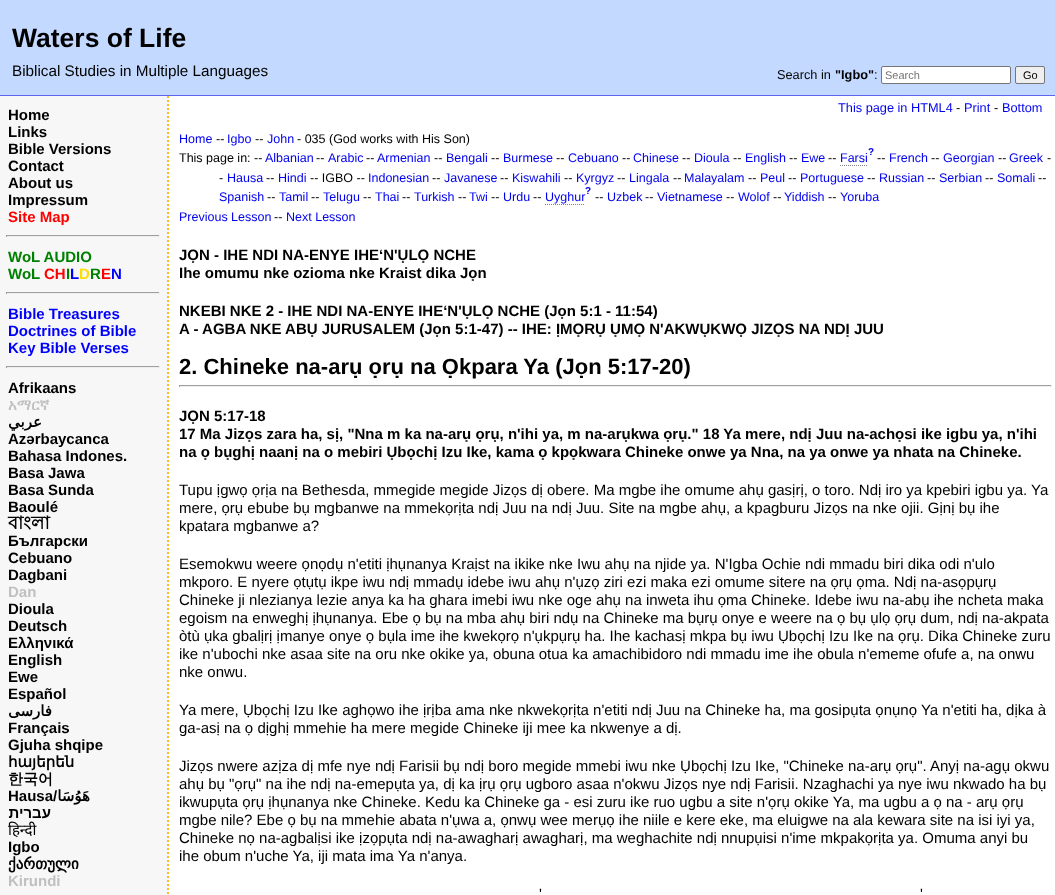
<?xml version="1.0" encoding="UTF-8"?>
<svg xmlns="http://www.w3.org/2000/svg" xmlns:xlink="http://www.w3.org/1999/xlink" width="1055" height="895">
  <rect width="100%" height="100%" fill="#f7f7f7" />
  <rect width="1055" height="95" fill="#c3d9ff" />
  <rect y="95" width="1055" height="1" fill="#5f66ee" />
  <rect x="881.5" y="66.5" width="129" height="17" rx="1.5" fill="#ffffff" stroke="#767676" />
  <rect x="1015.5" y="66.5" width="29" height="17" rx="1.5" fill="#efefef" stroke="#767676" />
  <path d="M 168 96 v 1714" fill="none" stroke="#fabd23" stroke-width="2" stroke-dasharray="2 2" />
  <rect x="6" y="235" width="154" height="1" fill="#9f9f9f" />
  <rect x="159" y="235" width="1" height="2" fill="#eeeeee" />
  <rect x="6" y="236" width="154" height="1" fill="#eeeeee" />
  <rect x="6" y="235" width="1" height="2" fill="#9f9f9f" />
  <rect x="6" y="292" width="154" height="1" fill="#9f9f9f" />
  <rect x="159" y="292" width="1" height="2" fill="#eeeeee" />
  <rect x="6" y="293" width="154" height="1" fill="#eeeeee" />
  <rect x="6" y="292" width="1" height="2" fill="#9f9f9f" />
  <rect x="6" y="366" width="154" height="1" fill="#9f9f9f" />
  <rect x="159" y="366" width="1" height="2" fill="#eeeeee" />
  <rect x="6" y="367" width="154" height="1" fill="#eeeeee" />
  <rect x="6" y="366" width="1" height="2" fill="#9f9f9f" />
  <rect x="169" y="96" width="886" height="799" fill="#ffffff" />
  <path d="M 840 165.5 h 28" fill="none" stroke="#808080" stroke-dasharray="1 1" />
  <path d="M 545 204.5 h 40" fill="none" stroke="#808080" stroke-dasharray="1 1" />
  <rect x="179" y="385" width="873" height="1" fill="#9f9f9f" />
  <rect x="1051" y="385" width="1" height="2" fill="#eeeeee" />
  <rect x="179" y="386" width="873" height="1" fill="#eeeeee" />
  <rect x="179" y="385" width="1" height="2" fill="#9f9f9f" />
  <text x="12" y="47" style="font-family: Liberation Sans; font-size: 26.5px; font-weight: bold; fill: #000000">Waters of Life</text>
  <text x="12" y="76" style="font-family: Liberation Sans; font-size: 15.25px; fill: #000000">Biblical Studies in Multiple Languages</text>
  <text x="777" y="79" style="font-family: Liberation Sans; font-size: 12.75px; fill: #000000">Search in</text>
  <text x="835" y="79" style="font-family: Liberation Sans; font-size: 12.75px; font-weight: bold; fill: #000000">"Igbo"</text>
  <text x="874" y="79" style="font-family: Liberation Sans; font-size: 12.75px; fill: #000000">:</text>
  <text x="885" y="79" style="font-family: Liberation Sans; font-size: 11px; fill: #757575">Search</text>
  <text x="1023" y="79" style="font-family: Liberation Sans; font-size: 11px; fill: #000000">Go</text>
  <text x="8" y="120" style="font-family: Liberation Sans; font-size: 15px; font-weight: bold; fill: #000000">Home</text>
  <text x="8" y="137" style="font-family: Liberation Sans; font-size: 15px; font-weight: bold; fill: #000000">Links</text>
  <text x="8" y="154" style="font-family: Liberation Sans; font-size: 15px; font-weight: bold; fill: #000000">Bible Versions</text>
  <text x="8" y="171" style="font-family: Liberation Sans; font-size: 15px; font-weight: bold; fill: #000000">Contact</text>
  <text x="8" y="188" style="font-family: Liberation Sans; font-size: 15px; font-weight: bold; fill: #000000">About us</text>
  <text x="8" y="205" style="font-family: Liberation Sans; font-size: 15px; font-weight: bold; fill: #000000">Impressum</text>
  <text x="8" y="222" style="font-family: Liberation Sans; font-size: 15px; font-weight: bold; fill: #ff0000">Site Map</text>
  <text x="8" y="262" style="font-family: Liberation Sans; font-size: 15px; font-weight: bold; fill: #008000">WoL AUDIO</text>
  <text x="8" y="279" style="font-family: Liberation Sans; font-size: 15px; font-weight: bold; fill: #008000">WoL</text>
  <text x="44" y="279" style="font-family: Liberation Sans; font-size: 15px; font-weight: bold; fill: #ff0000">CH</text>
  <text x="66" y="279" style="font-family: Liberation Sans; font-size: 15px; font-weight: bold; fill: #008000">I</text>
  <text x="70" y="279" style="font-family: Liberation Sans; font-size: 15px; font-weight: bold; fill: #0000ff">L</text>
  <text x="79" y="279" style="font-family: Liberation Sans; font-size: 15px; font-weight: bold; fill: #f9e000">D</text>
  <text x="90" y="279" style="font-family: Liberation Sans; font-size: 15px; font-weight: bold; fill: #008000">R</text>
  <text x="101" y="279" style="font-family: Liberation Sans; font-size: 15px; font-weight: bold; fill: #ff0000">E</text>
  <text x="111" y="279" style="font-family: Liberation Sans; font-size: 15px; font-weight: bold; fill: #0000ff">N</text>
  <text x="8" y="319" style="font-family: Liberation Sans; font-size: 15px; font-weight: bold; fill: #0000ff">Bible Treasures</text>
  <text x="8" y="336" style="font-family: Liberation Sans; font-size: 15px; font-weight: bold; fill: #0000ff">Doctrines of Bible</text>
  <text x="8" y="353" style="font-family: Liberation Sans; font-size: 15px; font-weight: bold; fill: #0000ff">Key Bible Verses</text>
  <text x="8" y="393" style="font-family: Liberation Sans; font-size: 15px; font-weight: bold; fill: #000000">Afrikaans</text>
  <text x="8" y="410" style="font-family: FreeSerif; font-size: 15px; font-weight: bold; fill: #c0c0c0">አማርኛ</text>
  <text x="42" y="427" style="font-family: DejaVu Sans; font-size: 15px; font-weight: bold; direction: rtl; fill: #000000">عربي</text>
  <text x="8" y="444" style="font-family: Liberation Sans; font-size: 15px; font-weight: bold; fill: #000000">Azərbaycanca</text>
  <text x="8" y="461" style="font-family: Liberation Sans; font-size: 15px; font-weight: bold; fill: #000000">Bahasa Indones.</text>
  <text x="8" y="478" style="font-family: Liberation Sans; font-size: 15px; font-weight: bold; fill: #000000">Basa Jawa</text>
  <text x="8" y="495" style="font-family: Liberation Sans; font-size: 15px; font-weight: bold; fill: #000000">Basa Sunda</text>
  <text x="8" y="512" style="font-family: Liberation Sans; font-size: 15px; font-weight: bold; fill: #000000">Baoulé</text>
  <text x="8" y="529" style="font-family: Lohit Bengali; font-size: 18px; font-weight: bold; fill: #000000">বাংলা</text>
  <text x="8" y="546" style="font-family: Liberation Sans; font-size: 15px; font-weight: bold; fill: #000000">Български</text>
  <text x="8" y="563" style="font-family: Liberation Sans; font-size: 15px; font-weight: bold; fill: #000000">Cebuano</text>
  <text x="8" y="580" style="font-family: Liberation Sans; font-size: 15px; font-weight: bold; fill: #000000">Dagbani</text>
  <text x="8" y="597" style="font-family: Liberation Sans; font-size: 15px; font-weight: bold; fill: #c0c0c0">Dan</text>
  <text x="8" y="614" style="font-family: Liberation Sans; font-size: 15px; font-weight: bold; fill: #000000">Dioula</text>
  <text x="8" y="631" style="font-family: Liberation Sans; font-size: 15px; font-weight: bold; fill: #000000">Deutsch</text>
  <text x="8" y="648" style="font-family: Liberation Sans; font-size: 15px; font-weight: bold; fill: #000000">Ελληνικά</text>
  <text x="8" y="665" style="font-family: Liberation Sans; font-size: 15px; font-weight: bold; fill: #000000">English</text>
  <text x="8" y="682" style="font-family: Liberation Sans; font-size: 15px; font-weight: bold; fill: #000000">Ewe</text>
  <text x="8" y="699" style="font-family: Liberation Sans; font-size: 15px; font-weight: bold; fill: #000000">Español</text>
  <text x="52" y="716" style="font-family: DejaVu Sans; font-size: 15px; font-weight: bold; direction: rtl; fill: #000000">فارسی</text>
  <text x="8" y="733" style="font-family: Liberation Sans; font-size: 15px; font-weight: bold; fill: #000000">Français</text>
  <text x="8" y="750" style="font-family: Liberation Sans; font-size: 15px; font-weight: bold; fill: #000000">Gjuha shqipe</text>
  <text x="8" y="767" style="font-family: DejaVu Sans; font-size: 15px; font-weight: bold; fill: #000000">հայերեն</text>
  <text x="8" y="784" style="font-family: WenQuanYi Zen Hei; font-size: 15px; font-weight: bold; fill: #000000">한국어</text>
  <text x="8" y="801" style="font-family: Liberation Sans; font-size: 15px; font-weight: bold; fill: #000000">Hausa/</text>
  <text x="90" y="801" style="font-family: DejaVu Sans; font-size: 15px; font-weight: bold; direction: rtl; fill: #000000">هَوُسَا</text>
  <text x="51" y="818" style="font-family: Liberation Sans; font-size: 15px; font-weight: bold; direction: rtl; fill: #000000">עברית</text>
  <text x="8" y="835" style="font-family: Noto Sans; font-size: 15px; fill: #000000">हिन्दी</text>
  <text x="8" y="852" style="font-family: Liberation Sans; font-size: 15px; font-weight: bold; fill: #000000">Igbo</text>
  <text x="8" y="869" style="font-family: DejaVu Sans; font-size: 15px; font-weight: bold; fill: #000000">ქართული</text>
  <text x="8" y="886" style="font-family: Liberation Sans; font-size: 15px; font-weight: bold; fill: #c0c0c0">Kirundi</text>
  <text x="838" y="112" style="font-family: Liberation Sans; font-size: 12.75px; fill: #0000ee">This page in HTML4</text>
  <text x="956" y="112" style="font-family: Liberation Sans; font-size: 12.75px; fill: #000000">-</text>
  <text x="964" y="112" style="font-family: Liberation Sans; font-size: 12.75px; fill: #0000ee">Print</text>
  <text x="994" y="112" style="font-family: Liberation Sans; font-size: 12.75px; fill: #000000">-</text>
  <text x="1002" y="112" style="font-family: Liberation Sans; font-size: 12.75px; fill: #0000ee">Bottom</text>
  <text x="179" y="143" style="font-family: Liberation Sans; font-size: 12.5px; fill: #0000ee">Home</text>
  <text x="216" y="143" style="font-family: Liberation Sans; font-size: 12.5px; fill: #000000">--</text>
  <text x="227" y="143" style="font-family: Liberation Sans; font-size: 12.5px; fill: #0000ee">Igbo</text>
  <text x="255" y="143" style="font-family: Liberation Sans; font-size: 12.5px; fill: #000000">--</text>
  <text x="267" y="143" style="font-family: Liberation Sans; font-size: 12.5px; fill: #0000ee">John</text>
  <text x="297" y="143" style="font-family: Liberation Sans; font-size: 12.5px; fill: #000000">- 035 (God works with His Son)</text>
  <text x="868" y="155" style="font-family: Liberation Sans; font-size: 10px; font-weight: bold; fill: #0000ee">?</text>
  <text x="179" y="162" style="font-family: Liberation Sans; font-size: 12.5px; fill: #000000">This page in: --</text>
  <text x="265" y="162" style="font-family: Liberation Sans; font-size: 12.5px; fill: #0000ee">Albanian</text>
  <text x="316" y="162" style="font-family: Liberation Sans; font-size: 12.5px; fill: #000000">--</text>
  <text x="328" y="162" style="font-family: Liberation Sans; font-size: 12.5px; fill: #0000ee">Arabic</text>
  <text x="366" y="162" style="font-family: Liberation Sans; font-size: 12.5px; fill: #000000">--</text>
  <text x="377" y="162" style="font-family: Liberation Sans; font-size: 12.5px; fill: #0000ee">Armenian</text>
  <text x="434" y="162" style="font-family: Liberation Sans; font-size: 12.5px; fill: #000000">--</text>
  <text x="446" y="162" style="font-family: Liberation Sans; font-size: 12.5px; fill: #0000ee">Bengali</text>
  <text x="491" y="162" style="font-family: Liberation Sans; font-size: 12.5px; fill: #000000">--</text>
  <text x="503" y="162" style="font-family: Liberation Sans; font-size: 12.5px; fill: #0000ee">Burmese</text>
  <text x="556" y="162" style="font-family: Liberation Sans; font-size: 12.5px; fill: #000000">--</text>
  <text x="568" y="162" style="font-family: Liberation Sans; font-size: 12.5px; fill: #0000ee">Cebuano</text>
  <text x="622" y="162" style="font-family: Liberation Sans; font-size: 12.5px; fill: #000000">--</text>
  <text x="633" y="162" style="font-family: Liberation Sans; font-size: 12.5px; fill: #0000ee">Chinese</text>
  <text x="682" y="162" style="font-family: Liberation Sans; font-size: 12.5px; fill: #000000">--</text>
  <text x="694" y="162" style="font-family: Liberation Sans; font-size: 12.5px; fill: #0000ee">Dioula</text>
  <text x="733" y="162" style="font-family: Liberation Sans; font-size: 12.5px; fill: #000000">--</text>
  <text x="745" y="162" style="font-family: Liberation Sans; font-size: 12.5px; fill: #0000ee">English</text>
  <text x="789" y="162" style="font-family: Liberation Sans; font-size: 12.5px; fill: #000000">--</text>
  <text x="801" y="162" style="font-family: Liberation Sans; font-size: 12.5px; fill: #0000ee">Ewe</text>
  <text x="828" y="162" style="font-family: Liberation Sans; font-size: 12.5px; fill: #000000">--</text>
  <text x="840" y="162" style="font-family: Liberation Sans; font-size: 12.5px; fill: #0000ee">Farsi</text>
  <text x="877" y="162" style="font-family: Liberation Sans; font-size: 12.5px; fill: #000000">--</text>
  <text x="889" y="162" style="font-family: Liberation Sans; font-size: 12.5px; fill: #0000ee">French</text>
  <text x="931" y="162" style="font-family: Liberation Sans; font-size: 12.5px; fill: #000000">--</text>
  <text x="943" y="162" style="font-family: Liberation Sans; font-size: 12.5px; fill: #0000ee">Georgian</text>
  <text x="998" y="162" style="font-family: Liberation Sans; font-size: 12.5px; fill: #000000">--</text>
  <text x="1009" y="162" style="font-family: Liberation Sans; font-size: 12.5px; fill: #0000ee">Greek</text>
  <text x="1047" y="162" style="font-family: Liberation Sans; font-size: 12.5px; fill: #000000">-</text>
  <text x="219" y="182" style="font-family: Liberation Sans; font-size: 12.5px; fill: #000000">-</text>
  <text x="227" y="182" style="font-family: Liberation Sans; font-size: 12.5px; fill: #0000ee">Hausa</text>
  <text x="266" y="182" style="font-family: Liberation Sans; font-size: 12.5px; fill: #000000">--</text>
  <text x="278" y="182" style="font-family: Liberation Sans; font-size: 12.5px; fill: #0000ee">Hindi</text>
  <text x="310" y="182" style="font-family: Liberation Sans; font-size: 12.5px; fill: #000000">-- IGBO --</text>
  <text x="368" y="182" style="font-family: Liberation Sans; font-size: 12.5px; fill: #0000ee">Indonesian</text>
  <text x="432" y="182" style="font-family: Liberation Sans; font-size: 12.5px; fill: #000000">--</text>
  <text x="444" y="182" style="font-family: Liberation Sans; font-size: 12.5px; fill: #0000ee">Javanese</text>
  <text x="500" y="182" style="font-family: Liberation Sans; font-size: 12.5px; fill: #000000">--</text>
  <text x="512" y="182" style="font-family: Liberation Sans; font-size: 12.5px; fill: #0000ee">Kiswahili</text>
  <text x="564" y="182" style="font-family: Liberation Sans; font-size: 12.5px; fill: #000000">--</text>
  <text x="576" y="182" style="font-family: Liberation Sans; font-size: 12.5px; fill: #0000ee">Kyrgyz</text>
  <text x="617" y="182" style="font-family: Liberation Sans; font-size: 12.5px; fill: #000000">--</text>
  <text x="629" y="182" style="font-family: Liberation Sans; font-size: 12.5px; fill: #0000ee">Lingala</text>
  <text x="673" y="182" style="font-family: Liberation Sans; font-size: 12.5px; fill: #000000">--</text>
  <text x="684" y="182" style="font-family: Liberation Sans; font-size: 12.5px; fill: #0000ee">Malayalam</text>
  <text x="748" y="182" style="font-family: Liberation Sans; font-size: 12.5px; fill: #000000">--</text>
  <text x="760" y="182" style="font-family: Liberation Sans; font-size: 12.5px; fill: #0000ee">Peul</text>
  <text x="788" y="182" style="font-family: Liberation Sans; font-size: 12.5px; fill: #000000">--</text>
  <text x="800" y="182" style="font-family: Liberation Sans; font-size: 12.5px; fill: #0000ee">Portuguese</text>
  <text x="867" y="182" style="font-family: Liberation Sans; font-size: 12.5px; fill: #000000">--</text>
  <text x="879" y="182" style="font-family: Liberation Sans; font-size: 12.5px; fill: #0000ee">Russian</text>
  <text x="927" y="182" style="font-family: Liberation Sans; font-size: 12.5px; fill: #000000">--</text>
  <text x="939" y="182" style="font-family: Liberation Sans; font-size: 12.5px; fill: #0000ee">Serbian</text>
  <text x="985" y="182" style="font-family: Liberation Sans; font-size: 12.5px; fill: #000000">--</text>
  <text x="997" y="182" style="font-family: Liberation Sans; font-size: 12.5px; fill: #0000ee">Somali</text>
  <text x="1038" y="182" style="font-family: Liberation Sans; font-size: 12.5px; fill: #000000">--</text>
  <text x="585" y="194" style="font-family: Liberation Sans; font-size: 10px; font-weight: bold; fill: #0000ee">?</text>
  <text x="219" y="201" style="font-family: Liberation Sans; font-size: 12.5px; fill: #0000ee">Spanish</text>
  <text x="267" y="201" style="font-family: Liberation Sans; font-size: 12.5px; fill: #000000">--</text>
  <text x="279" y="201" style="font-family: Liberation Sans; font-size: 12.5px; fill: #0000ee">Tamil</text>
  <text x="311" y="201" style="font-family: Liberation Sans; font-size: 12.5px; fill: #000000">--</text>
  <text x="323" y="201" style="font-family: Liberation Sans; font-size: 12.5px; fill: #0000ee">Telugu</text>
  <text x="363" y="201" style="font-family: Liberation Sans; font-size: 12.5px; fill: #000000">--</text>
  <text x="375" y="201" style="font-family: Liberation Sans; font-size: 12.5px; fill: #0000ee">Thai</text>
  <text x="402" y="201" style="font-family: Liberation Sans; font-size: 12.5px; fill: #000000">--</text>
  <text x="414" y="201" style="font-family: Liberation Sans; font-size: 12.5px; fill: #0000ee">Turkish</text>
  <text x="458" y="201" style="font-family: Liberation Sans; font-size: 12.5px; fill: #000000">--</text>
  <text x="469" y="201" style="font-family: Liberation Sans; font-size: 12.5px; fill: #0000ee">Twi</text>
  <text x="491" y="201" style="font-family: Liberation Sans; font-size: 12.5px; fill: #000000">--</text>
  <text x="503" y="201" style="font-family: Liberation Sans; font-size: 12.5px; fill: #0000ee">Urdu</text>
  <text x="533" y="201" style="font-family: Liberation Sans; font-size: 12.5px; fill: #000000">--</text>
  <text x="545" y="201" style="font-family: Liberation Sans; font-size: 12.5px; fill: #0000ee">Uyghur</text>
  <text x="595" y="201" style="font-family: Liberation Sans; font-size: 12.5px; fill: #000000">--</text>
  <text x="607" y="201" style="font-family: Liberation Sans; font-size: 12.5px; fill: #0000ee">Uzbek</text>
  <text x="645" y="201" style="font-family: Liberation Sans; font-size: 12.5px; fill: #000000">--</text>
  <text x="657" y="201" style="font-family: Liberation Sans; font-size: 12.5px; fill: #0000ee">Vietnamese</text>
  <text x="726" y="201" style="font-family: Liberation Sans; font-size: 12.5px; fill: #000000">--</text>
  <text x="738" y="201" style="font-family: Liberation Sans; font-size: 12.5px; fill: #0000ee">Wolof</text>
  <text x="773" y="201" style="font-family: Liberation Sans; font-size: 12.5px; fill: #000000">--</text>
  <text x="784" y="201" style="font-family: Liberation Sans; font-size: 12.5px; fill: #0000ee">Yiddish</text>
  <text x="828" y="201" style="font-family: Liberation Sans; font-size: 12.5px; fill: #000000">--</text>
  <text x="840" y="201" style="font-family: Liberation Sans; font-size: 12.5px; fill: #0000ee">Yoruba</text>
  <text x="179" y="221" style="font-family: Liberation Sans; font-size: 12.5px; fill: #0000ee">Previous Lesson</text>
  <text x="274" y="221" style="font-family: Liberation Sans; font-size: 12.5px; fill: #000000">--</text>
  <text x="286" y="221" style="font-family: Liberation Sans; font-size: 12.5px; fill: #0000ee">Next Lesson</text>
  <text x="179" y="260" style="font-family: Liberation Sans; font-size: 15px; font-weight: bold; fill: #000000">JỌN - IHE NDI NA-ENYE IHE‘N'ỤLỌ NCHE</text>
  <text x="179" y="278" style="font-family: Liberation Sans; font-size: 15px; font-weight: bold; fill: #000000">Ihe omumu nke ozioma nke Kraist dika Jọn</text>
  <text x="179" y="316" style="font-family: Liberation Sans; font-size: 15px; font-weight: bold; fill: #000000">NKEBI NKE 2 - IHE NDI NA-ENYE IHE‘N'ỤLỌ NCHE (Jọn 5:1 - 11:54)</text>
  <text x="179" y="334" style="font-family: Liberation Sans; font-size: 15px; font-weight: bold; fill: #000000">A - AGBA NKE ABỤ JURUSALEM (Jọn 5:1-47) -- IHE: ỊMỌRỤ ỤMỌ N'AKWỤKWỌ JIZỌS NA NDỊ JUU</text>
  <text x="179" y="374" style="font-family: Liberation Sans; font-size: 22px; font-weight: bold; fill: #000000">2. Chineke na-arụ ọrụ na Ọkpara Ya (Jọn 5:17-20)</text>
  <text x="179" y="421" style="font-family: Liberation Sans; font-size: 15px; font-weight: bold; fill: #000000">JỌN 5:17-18</text>
  <text x="179" y="439" style="font-family: Liberation Sans; font-size: 15px; font-weight: bold; fill: #000000">17 Ma Jizọs zara ha, sị, "Nna m ka na-arụ ọrụ, n'ihi ya, m na-arụkwa ọrụ." 18 Ya mere, ndị Juu na-achọsi ike igbu ya, n'ihi</text>
  <text x="179" y="457" style="font-family: Liberation Sans; font-size: 15px; font-weight: bold; fill: #000000">na ọ bụghị naanị na o mebiri Ụbọchị Izu Ike, kama ọ kpọkwara Chineke onwe ya Nna, na ya onwe ya nhata na Chineke.</text>
  <text x="179" y="495" style="font-family: Liberation Sans; font-size: 15px; fill: #000000">Tupu ịgwọ ọrịa na Bethesda, mmegide megide Jizọs dị obere. Ma mgbe ihe omume ahụ gasịrị, o toro. Ndị iro ya kpebiri igbu ya. Ya</text>
  <text x="179" y="513" style="font-family: Liberation Sans; font-size: 15px; fill: #000000">mere, ọrụ ebube bụ mgbanwe na mmekọrịta ndị Juu na ndị Juu. Site na mgbe ahụ, a kpagburu Jizọs na nke ojii. Gịnị bụ ihe</text>
  <text x="179" y="531" style="font-family: Liberation Sans; font-size: 15px; fill: #000000">kpatara mgbanwe a?</text>
  <text x="179" y="569" style="font-family: Liberation Sans; font-size: 15px; fill: #000000">Esemokwu weere ọnọdụ n'etiti ịhụnanya Kraịst na ikike nke Iwu ahụ na njide ya. N'Igba Ochie ndi mmadu biri dika odi n'ulo</text>
  <text x="179" y="587" style="font-family: Liberation Sans; font-size: 15px; fill: #000000">mkporo. E nyere ọtụtụ ikpe iwu ndị mmadụ idebe iwu ahụ n'ụzọ ziri ezi maka ezi omume sitere na ọrụ ọma. Ndị na-asọpụrụ</text>
  <text x="179" y="605" style="font-family: Liberation Sans; font-size: 15px; fill: #000000">Chineke ji nlezianya lezie anya ka ha ghara imebi iwu nke oge ahụ na inweta ihu ọma Chineke. Idebe iwu na-abụ ihe ncheta maka</text>
  <text x="179" y="623" style="font-family: Liberation Sans; font-size: 15px; fill: #000000">egoism na enweghị ịhụnanya. Ebe ọ bụ na mba ahụ biri ndụ na Chineke ma bụrụ onye e weere na ọ bụ ụlọ ọrụ dum, ndị na-akpata</text>
  <text x="179" y="641" style="font-family: Liberation Sans; font-size: 15px; fill: #000000">òtù ụka gbalịrị ịmanye onye ọ bụla ime ihe kwekọrọ n'ụkpụrụ ha. Ihe kachasị mkpa bụ iwu Ụbọchị Izu Ike na ọrụ. Dika Chineke zuru</text>
  <text x="179" y="659" style="font-family: Liberation Sans; font-size: 15px; fill: #000000">ike n'ubochi nke asaa site na oru nke okike ya, obuna otua ka amachibidoro ndi mmadu ime ihe obula n'ememe ofufe a, na onwu</text>
  <text x="179" y="677" style="font-family: Liberation Sans; font-size: 15px; fill: #000000">nke onwu.</text>
  <text x="179" y="715" style="font-family: Liberation Sans; font-size: 15px; fill: #000000">Ya mere, Ụbọchị Izu Ike aghọwo ihe ịrịba ama nke nkwekọrịta n'etiti ndị Juu na Chineke ha, ma gosipụta ọnụnọ Ya n'etiti ha, dịka à</text>
  <text x="179" y="733" style="font-family: Liberation Sans; font-size: 15px; fill: #000000">ga-asị na ọ dịghị mmehie ha mere megide Chineke iji mee ka nkwenye a dị.</text>
  <text x="179" y="771" style="font-family: Liberation Sans; font-size: 15px; fill: #000000">Jizọs nwere azịza dị mfe nye ndị Farisii bụ ndị boro megide mmebi iwu nke Ụbọchị Izu Ike, "Chineke na-arụ ọrụ". Anyị na-agụ okwu</text>
  <text x="179" y="789" style="font-family: Liberation Sans; font-size: 15px; fill: #000000">ahụ bụ "ọrụ" na ihe ndị na-emepụta ya, dị ka ịrụ ọrụ ugboro asaa n'okwu Jizọs nye ndị Farisii. Nzaghachi ya nye iwu nkwado ha bụ</text>
  <text x="179" y="807" style="font-family: Liberation Sans; font-size: 15px; fill: #000000">ikwupụta ọrụ ịhụnanya nke Chineke. Kedu ka Chineke ga - esi zuru ike ruo ugbu a site n'ọrụ okike Ya, ma ugbu a ọ na - arụ ọrụ</text>
  <text x="179" y="825" style="font-family: Liberation Sans; font-size: 15px; fill: #000000">mgbe nile? Ebe ọ bụ na mmehie abata n'ụwa a, ọnwụ wee merụọ ihe niile e kere eke, ma eluigwe na ala kewara site na isi iyi ya,</text>
  <text x="179" y="843" style="font-family: Liberation Sans; font-size: 15px; fill: #000000">Chineke nọ na-agbalịsi ike ịzọpụta ndị na-awagharị awagharị, ma weghachite ndị nnupụisi n'ime mkpakọrịta ya. Omuma anyi bu</text>
  <text x="179" y="861" style="font-family: Liberation Sans; font-size: 15px; fill: #000000">ihe obum n'uche Ya, iji mata ima Ya n'anya.</text>
  <text x="539" y="899" style="font-family: Liberation Sans; font-size: 15px; fill: #000000">'</text>
  <text x="920" y="899" style="font-family: Liberation Sans; font-size: 15px; fill: #000000">'</text>
</svg>
